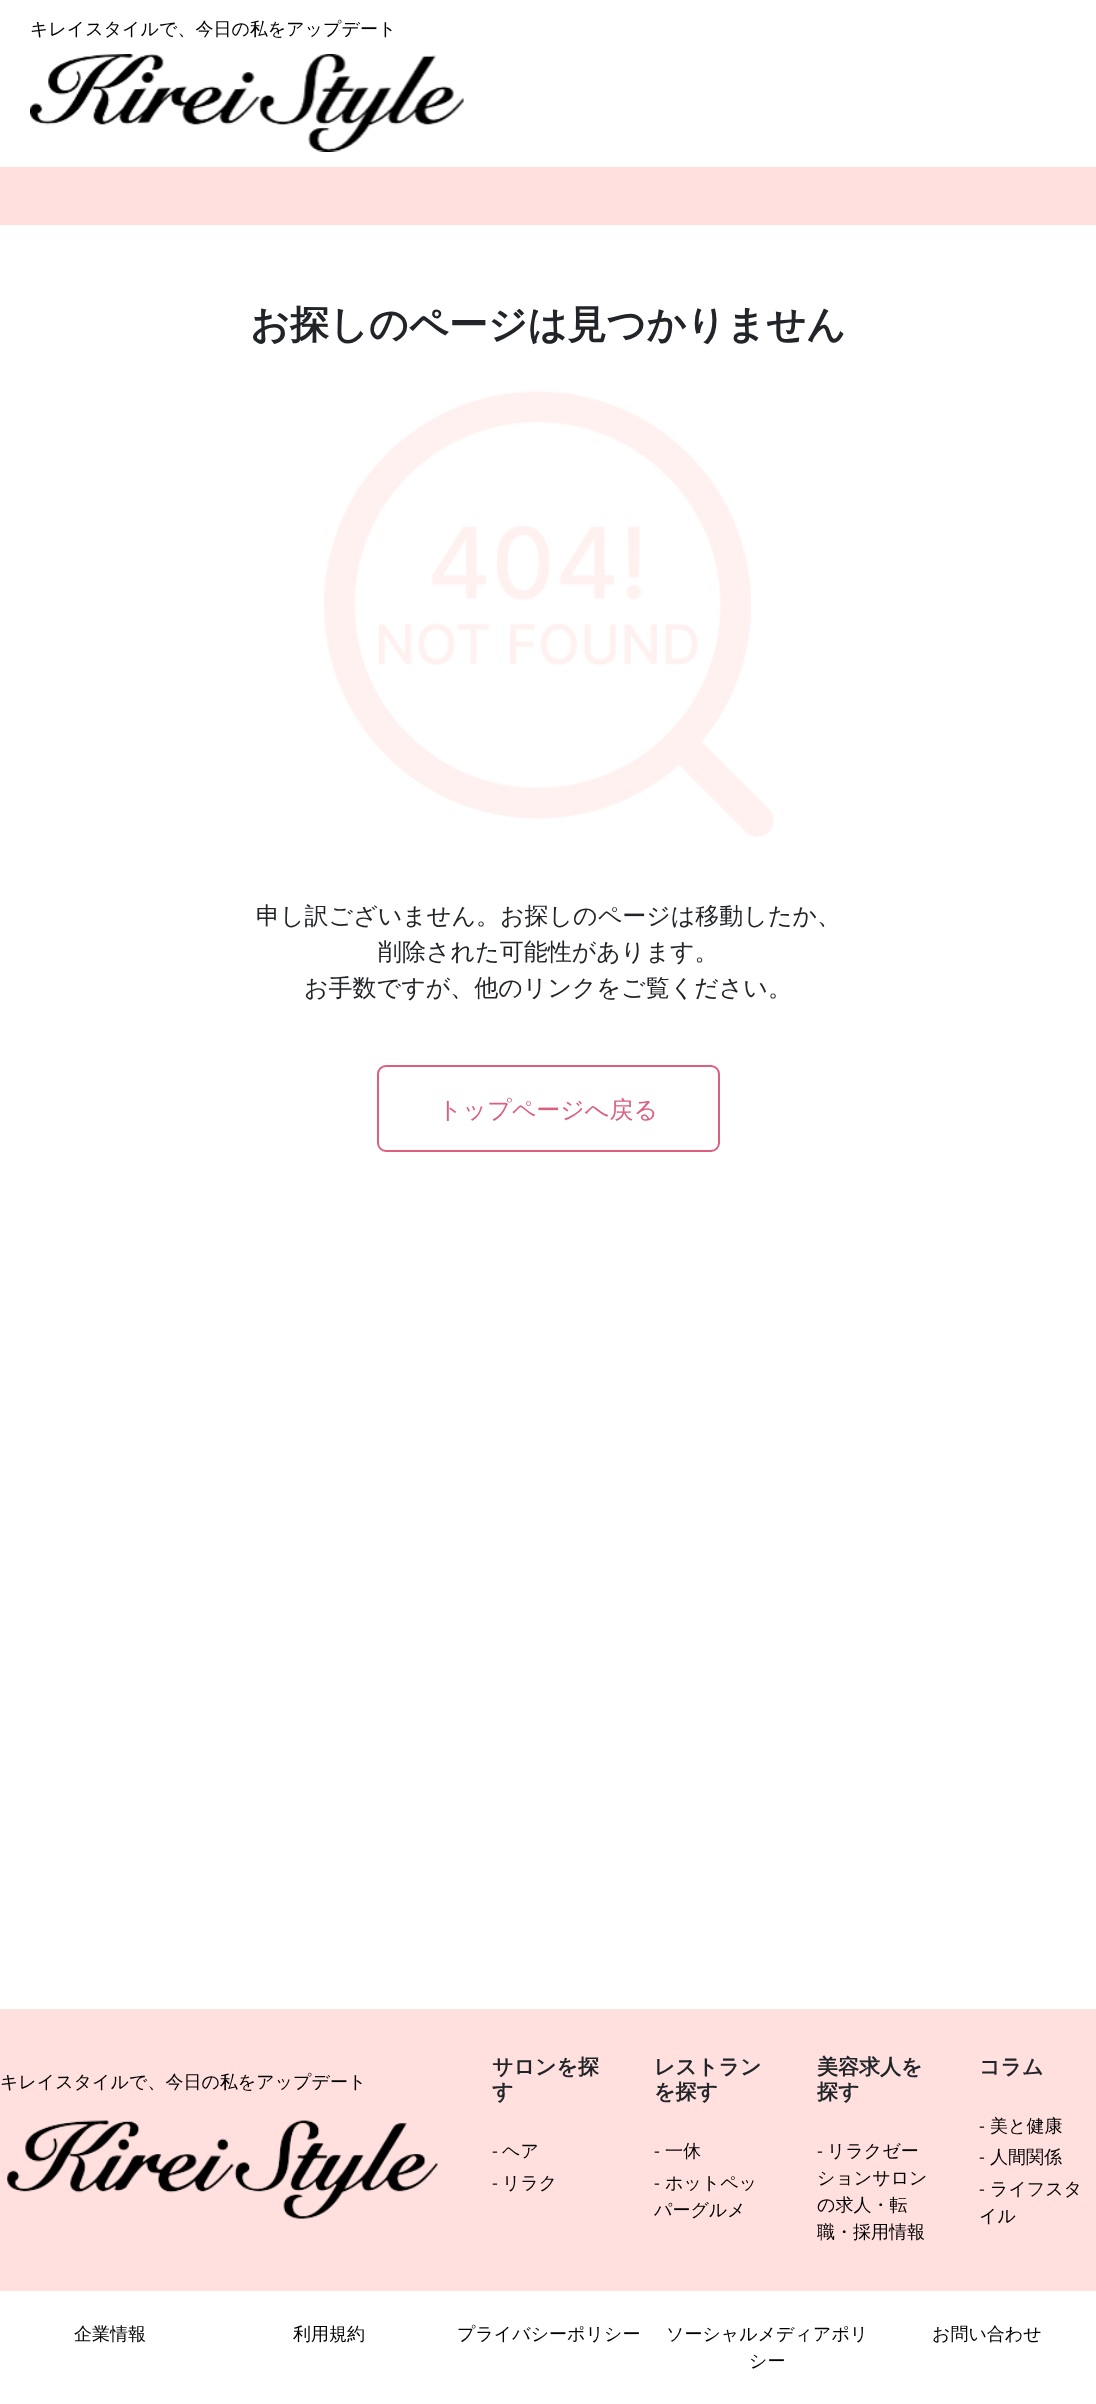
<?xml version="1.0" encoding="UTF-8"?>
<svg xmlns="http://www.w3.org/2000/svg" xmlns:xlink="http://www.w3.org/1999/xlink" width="1096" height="2404">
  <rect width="100%" height="100%" fill="#ffffff" />
  <image x="30" y="54" width="434" height="98" xlink:href="image1.png" />
  <rect y="167" width="1096" height="58" fill="#ffe0de" />
  <image x="324" y="391" width="450" height="446" xlink:href="image2.png" />
  <rect x="378" y="1066" width="341" height="85" rx="8" fill="none" stroke="#dc5f7f" stroke-width="2" />
  <rect y="2009" width="1096" height="282" fill="#ffe0de" />
  <image x="7" y="2120" width="431" height="99" xlink:href="image3.png" />
  <text x="30" y="35" style="font-family: WenQuanYi Zen Hei; font-size: 18px; font-weight: 500; fill: #000000">キレイスタイルで、今日の私をアップデート</text>
  <text x="250" y="338" style="font-family: WenQuanYi Zen Hei; font-size: 39px; font-weight: bold; fill: #212529">お探しのページは見つかりません</text>
  <text x="256" y="924" style="font-family: WenQuanYi Zen Hei; font-size: 24px; font-weight: 500; fill: #212529">申し訳ございません。お探しのページは移動したか、</text>
  <text x="378" y="960" style="font-family: WenQuanYi Zen Hei; font-size: 24px; font-weight: 500; fill: #212529">削除された可能性があります。</text>
  <text x="304" y="996" style="font-family: WenQuanYi Zen Hei; font-size: 24px; font-weight: 500; fill: #212529">お手数ですが、他のリンクをご覧ください。</text>
  <text x="438" y="1118" style="font-family: WenQuanYi Zen Hei; font-size: 24px; font-weight: 500; fill: #dc5f7f">トップページへ戻る</text>
  <text x="0" y="2088" style="font-family: WenQuanYi Zen Hei; font-size: 18px; font-weight: 500; fill: #000000">キレイスタイルで、今日の私をアップデート</text>
  <text x="492" y="2074" style="font-family: WenQuanYi Zen Hei; font-size: 21px; font-weight: bold; fill: #212529">サロンを探</text>
  <text x="492" y="2099" style="font-family: WenQuanYi Zen Hei; font-size: 21px; font-weight: bold; fill: #212529">す</text>
  <text x="492" y="2157" style="font-family: Noto Sans; font-size: 18px; fill: #212529">-</text>
  <text x="502" y="2157" style="font-family: WenQuanYi Zen Hei; font-size: 18px; font-weight: 500; fill: #000000">ヘア</text>
  <text x="492" y="2189" style="font-family: Noto Sans; font-size: 18px; fill: #212529">-</text>
  <text x="502" y="2189" style="font-family: WenQuanYi Zen Hei; font-size: 18px; font-weight: 500; fill: #000000">リラク</text>
  <text x="654" y="2074" style="font-family: WenQuanYi Zen Hei; font-size: 21px; font-weight: bold; fill: #212529">レストラン</text>
  <text x="654" y="2099" style="font-family: WenQuanYi Zen Hei; font-size: 21px; font-weight: bold; fill: #212529">を探す</text>
  <text x="654" y="2157" style="font-family: Noto Sans; font-size: 18px; fill: #212529">-</text>
  <text x="665" y="2157" style="font-family: WenQuanYi Zen Hei; font-size: 18px; font-weight: 500; fill: #000000">一休</text>
  <text x="654" y="2189" style="font-family: Noto Sans; font-size: 18px; fill: #212529">-</text>
  <text x="665" y="2189" style="font-family: WenQuanYi Zen Hei; font-size: 18px; font-weight: 500; fill: #000000">ホットペッ</text>
  <text x="654" y="2216" style="font-family: WenQuanYi Zen Hei; font-size: 18px; font-weight: 500; fill: #000000">パーグルメ</text>
  <text x="817" y="2074" style="font-family: WenQuanYi Zen Hei; font-size: 21px; font-weight: bold; fill: #212529">美容求人を</text>
  <text x="817" y="2099" style="font-family: WenQuanYi Zen Hei; font-size: 21px; font-weight: bold; fill: #212529">探す</text>
  <text x="817" y="2157" style="font-family: Noto Sans; font-size: 18px; fill: #212529">-</text>
  <text x="827" y="2157" style="font-family: WenQuanYi Zen Hei; font-size: 18px; font-weight: 500; fill: #000000">リラクゼー</text>
  <text x="817" y="2184" style="font-family: WenQuanYi Zen Hei; font-size: 18px; font-weight: 500; fill: #000000">ションサロン</text>
  <text x="817" y="2211" style="font-family: WenQuanYi Zen Hei; font-size: 18px; font-weight: 500; fill: #000000">の求人・転</text>
  <text x="817" y="2238" style="font-family: WenQuanYi Zen Hei; font-size: 18px; font-weight: 500; fill: #000000">職・採用情報</text>
  <text x="979" y="2074" style="font-family: WenQuanYi Zen Hei; font-size: 21px; font-weight: bold; fill: #212529">コラム</text>
  <text x="979" y="2132" style="font-family: Noto Sans; font-size: 18px; fill: #212529">-</text>
  <text x="990" y="2132" style="font-family: WenQuanYi Zen Hei; font-size: 18px; font-weight: 500; fill: #000000">美と健康</text>
  <text x="979" y="2163" style="font-family: Noto Sans; font-size: 18px; fill: #212529">-</text>
  <text x="990" y="2163" style="font-family: WenQuanYi Zen Hei; font-size: 18px; font-weight: 500; fill: #000000">人間関係</text>
  <text x="979" y="2195" style="font-family: Noto Sans; font-size: 18px; fill: #212529">-</text>
  <text x="990" y="2195" style="font-family: WenQuanYi Zen Hei; font-size: 18px; font-weight: 500; fill: #000000">ライフスタ</text>
  <text x="979" y="2222" style="font-family: WenQuanYi Zen Hei; font-size: 18px; font-weight: 500; fill: #000000">イル</text>
  <text x="74" y="2340" style="font-family: WenQuanYi Zen Hei; font-size: 18px; font-weight: 500; fill: #000000">企業情報</text>
  <text x="293" y="2340" style="font-family: WenQuanYi Zen Hei; font-size: 18px; font-weight: 500; fill: #000000">利用規約</text>
  <text x="457" y="2340" style="font-family: WenQuanYi Zen Hei; font-size: 18px; font-weight: 500; fill: #000000">プライバシーポリシー</text>
  <text x="666" y="2340" style="font-family: WenQuanYi Zen Hei; font-size: 18px; font-weight: 500; fill: #000000">ソーシャルメディアポリ</text>
  <text x="749" y="2367" style="font-family: WenQuanYi Zen Hei; font-size: 18px; font-weight: 500; fill: #000000">シー</text>
  <text x="932" y="2340" style="font-family: WenQuanYi Zen Hei; font-size: 18px; font-weight: 500; fill: #000000">お問い合わせ</text>
</svg>
